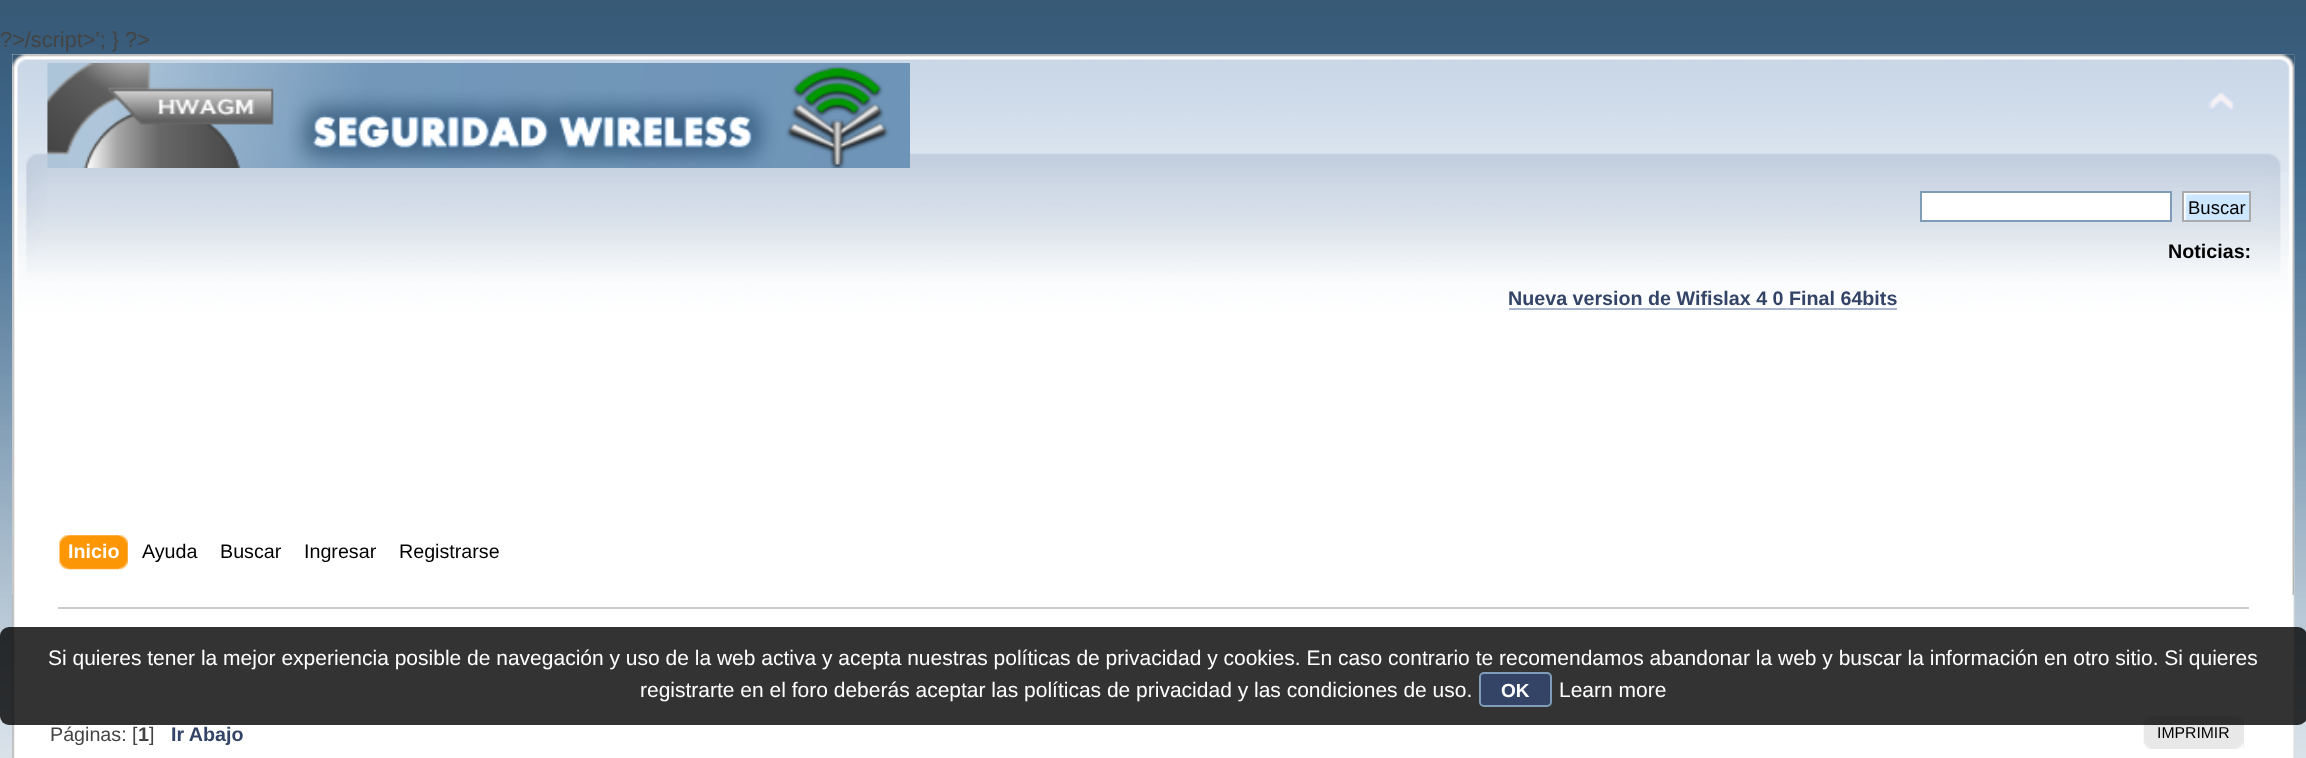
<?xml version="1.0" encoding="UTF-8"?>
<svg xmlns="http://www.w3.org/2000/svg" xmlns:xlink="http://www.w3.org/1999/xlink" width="2306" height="758">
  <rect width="100%" height="100%" fill="#ffffff" />
  <image x="0" y="0" width="2306" height="758" xlink:href="image1.png" />
  <rect x="12" y="54" width="2282" height="541" fill="#fefefe" />
  <image x="12" y="54" width="2283" height="541" xlink:href="image2.png" />
  <image x="47" y="54" width="2248" height="541" xlink:href="image3.png" />
  <image x="47" y="63" width="863" height="105" xlink:href="image4.png" />
  <image x="2208" y="92" width="26" height="20" xlink:href="image5.png" />
  <rect x="1921" y="192" width="250" height="29" fill="#ffffff" stroke="#7f9db9" stroke-width="2" />
  <image x="2184" y="193" width="67" height="30" xlink:href="image6.png" />
  <rect x="2183" y="192" width="67" height="29" fill="none" stroke="#aaaaaa" stroke-width="2" />
  <rect x="1509" y="308" width="388" height="2" fill="#a8b6cf" />
  <image x="68" y="535" width="60" height="35" xlink:href="image7.png" />
  <image x="59" y="535" width="60" height="35" xlink:href="image8.png" />
  <image x="12" y="595" width="2283" height="163" xlink:href="image9.png" />
  <image x="2293" y="595" width="2" height="163" xlink:href="image10.png" />
  <rect x="58" y="607" width="2191" height="2" fill="#cccccc" />
  <rect x="2243" y="716" width="1" height="33" fill="#e8e8e8" />
  <image x="2143" y="715" width="100" height="34" xlink:href="image11.png" />
  <image x="2158" y="715" width="86" height="34" xlink:href="image12.png" />
  <rect y="627" width="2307" height="98" rx="9" fill="#000000" fill-opacity="0.8" />
  <rect x="1480" y="673" width="71" height="33" rx="4" fill="#334466" stroke="#7f9db9" stroke-width="2" />
  <text x="0" y="47" style="font-family: Liberation Sans; font-size: 21.75px; fill: #444444">?&gt;/script&gt;'; } ?&gt;</text>
  <text x="2188" y="214" style="font-family: Liberation Sans; font-size: 18.5px; fill: #000000">Buscar</text>
  <text x="2168" y="258" style="font-family: Liberation Sans; font-size: 19.7px; font-weight: bold; fill: #000000">Noticias:</text>
  <text x="1508" y="305" style="font-family: Liberation Sans; font-size: 19.7px; font-weight: bold; fill: #334466">Nueva version de Wifislax 4 0 Final 64bits</text>
  <text x="68" y="558" style="font-family: Liberation Sans; font-size: 19.7px; font-weight: bold; fill: #ffffff">Inicio</text>
  <text x="142" y="558" style="font-family: Liberation Sans; font-size: 19.7px; fill: #000000">Ayuda</text>
  <text x="220" y="558" style="font-family: Liberation Sans; font-size: 19.7px; fill: #000000">Buscar</text>
  <text x="304" y="558" style="font-family: Liberation Sans; font-size: 19.7px; fill: #000000">Ingresar</text>
  <text x="399" y="558" style="font-family: Liberation Sans; font-size: 19.7px; fill: #000000">Registrarse</text>
  <text x="50" y="741" style="font-family: Liberation Sans; font-size: 19.7px; fill: #444444">Páginas: [</text>
  <text x="138" y="741" style="font-family: Liberation Sans; font-size: 19.7px; font-weight: bold; fill: #444444">1</text>
  <text x="149" y="741" style="font-family: Liberation Sans; font-size: 19.7px; fill: #444444">]</text>
  <text x="171" y="741" style="font-family: Liberation Sans; font-size: 19.7px; font-weight: bold; fill: #334466">Ir Abajo</text>
  <text x="2157" y="738" style="font-family: Liberation Sans; font-size: 15.75px; fill: #000000">IMPRIMIR</text>
  <text x="48" y="665" style="font-family: Liberation Sans; font-size: 21px; fill: #ffffff">Si quieres tener la mejor experiencia posible de navegación y uso de la web activa y acepta nuestras políticas de privacidad y cookies. En caso contrario te recomendamos abandonar la web y buscar la información en otro sitio. Si quieres</text>
  <text x="640" y="697" style="font-family: Liberation Sans; font-size: 21px; fill: #ffffff">registrarte en el foro deberás aceptar las políticas de privacidad y las condiciones de uso.</text>
  <text x="1501" y="697" style="font-family: Liberation Sans; font-size: 19px; font-weight: bold; fill: #ffffff">OK</text>
  <text x="1559" y="697" style="font-family: Liberation Sans; font-size: 21px; fill: #ffffff">Learn more</text>
</svg>
